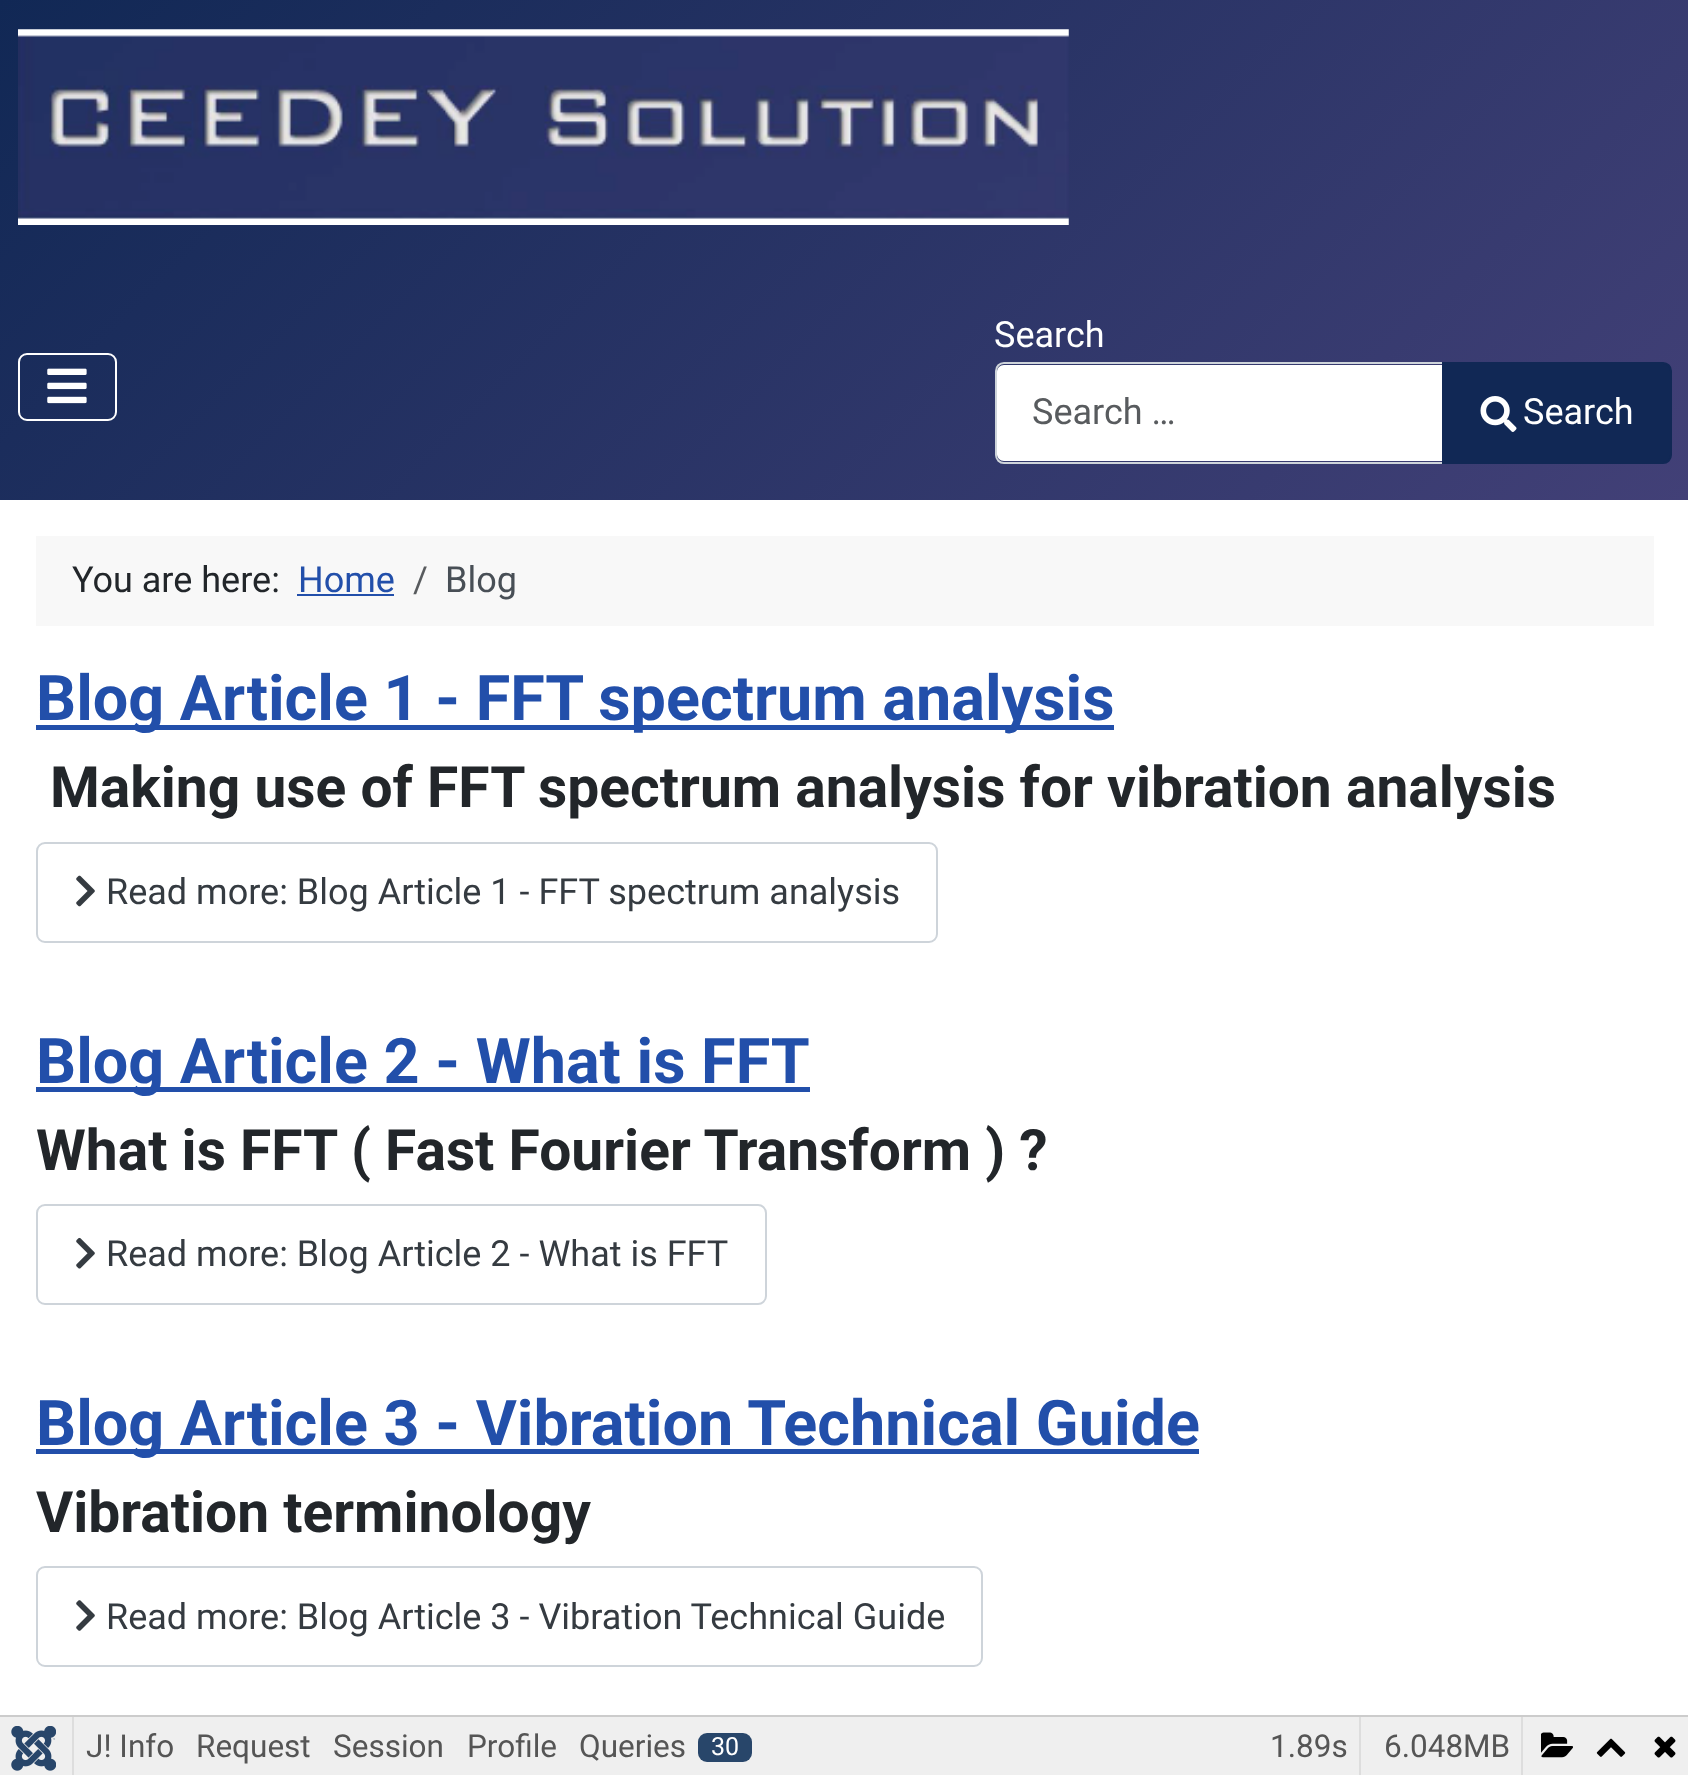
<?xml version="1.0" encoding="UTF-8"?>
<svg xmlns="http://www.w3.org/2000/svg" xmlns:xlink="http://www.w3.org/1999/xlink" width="1688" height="1775">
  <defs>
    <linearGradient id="g1" gradientUnits="userSpaceOnUse" x1="298" y1="-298" x2="1392" y2="797"><stop offset="0" stop-color="#112855" /><stop offset="1" stop-color="#424077" /></linearGradient>
  </defs>
  <rect width="100%" height="100%" fill="#ffffff" />
  <rect width="1688" height="500" fill="url(#g1)" />
  <image x="18" y="29" width="1051" height="196" xlink:href="image1.png" />
  <rect x="19" y="354" width="97" height="66" rx="8" fill="none" stroke="#ffffff" stroke-width="2" />
  <image x="47" y="368" width="40" height="36" xlink:href="image2.png" />
  <path d="M 1004 365 h 438 v 96 h -438 c -4 0 -7 -3 -7 -7 v -82 c 0 -4 3 -7 7 -7 z" fill="#ffffff" />
  <path d="M 1004 363 h 440 v 100 h -440 c -4.5 0 -8 -3.5 -8 -8 v -84 c 0 -4.5 3.5 -8 8 -8 z" fill="none" stroke="#ced4da" stroke-width="2" />
  <path d="M 1443 363 h 220 c 4.5 0 8 3.5 8 8 v 84 c 0 4.5 -3.5 8 -8 8 h -220 z" fill="#112855" stroke="#112855" stroke-width="2" />
  <image x="1480" y="396" width="37" height="36" xlink:href="image3.png" />
  <rect x="36" y="536" width="1618" height="90" fill="#f8f8f8" />
  <rect x="297" y="594" width="97" height="2" fill="#224faa" />
  <rect x="36" y="725" width="1078" height="5" fill="#224faa" />
  <rect x="37" y="843" width="900" height="99" rx="8" fill="none" stroke="#ced4da" stroke-width="2" />
  <image x="76" y="875" width="19" height="32" xlink:href="image4.png" />
  <rect x="36" y="1087" width="774" height="5" fill="#224faa" />
  <rect x="37" y="1205" width="729" height="99" rx="8" fill="none" stroke="#ced4da" stroke-width="2" />
  <image x="76" y="1237" width="19" height="32" xlink:href="image5.png" />
  <rect x="36" y="1449" width="1163" height="5" fill="#224faa" />
  <rect x="37" y="1567" width="945" height="99" rx="8" fill="none" stroke="#ced4da" stroke-width="2" />
  <image x="76" y="1600" width="19" height="31" xlink:href="image6.png" />
  <rect y="1715" width="1688" height="2" fill="#cccccc" />
  <rect x="74" y="1717" width="1614" height="58" fill="#efefef" />
  <rect y="1717" width="72" height="58" fill="#efefef" />
  <image x="11" y="1726" width="45" height="45" xlink:href="image7.png" />
  <rect x="72" y="1717" width="2" height="58" fill="#dddddd" />
  <rect x="698" y="1733" width="54" height="29" rx="9" fill="#28466a" />
  <rect x="1359" y="1717" width="2" height="58" fill="#dddddd" />
  <rect x="1521" y="1717" width="2" height="58" fill="#dddddd" />
  <image x="1541" y="1732" width="32" height="26" xlink:href="image8.png" />
  <image x="1596" y="1738" width="30" height="19" xlink:href="image9.png" />
  <image x="1654" y="1736" width="22" height="22" xlink:href="image10.png" />
  <text x="994" y="347" style="font-family: Roboto; font-size: 36px; fill: #ffffff">Search</text>
  <text x="1032" y="424" style="font-family: Roboto; font-size: 36px; fill: #585b5e">Search …</text>
  <text x="1523" y="424" style="font-family: Roboto; font-size: 36px; fill: #ffffff">Search</text>
  <text x="72" y="592" style="font-family: Roboto; font-size: 36px; fill: #22262a">You are here:</text>
  <text x="298" y="592" style="font-family: Roboto; font-size: 36px; fill: #224faa">Home</text>
  <text x="413" y="592" style="font-family: Roboto; font-size: 36px; fill: #585b5e">/</text>
  <text x="445" y="592" style="font-family: Roboto; font-size: 36px; fill: #484f56">Blog</text>
  <text x="36" y="720" style="font-family: Roboto; font-size: 62.9px; font-weight: bold; fill: #224faa">Blog Article 1 - FFT spectrum analysis</text>
  <text x="50" y="807" style="font-family: Roboto; font-size: 56.95px; font-weight: bold; fill: #22262a">Making use of FFT spectrum analysis for vibration analysis</text>
  <text x="106" y="904" style="font-family: Roboto; font-size: 36px; fill: #353b41">Read more: Blog Article 1 - FFT spectrum analysis</text>
  <text x="36" y="1083" style="font-family: Roboto; font-size: 62.9px; font-weight: bold; fill: #224faa">Blog Article 2 - What is FFT</text>
  <text x="36" y="1170" style="font-family: Roboto; font-size: 56.95px; font-weight: bold; fill: #22262a">What is FFT ( Fast Fourier Transform ) ?</text>
  <text x="106" y="1266" style="font-family: Roboto; font-size: 36px; fill: #353b41">Read more: Blog Article 2 - What is FFT</text>
  <text x="36" y="1445" style="font-family: Roboto; font-size: 62.9px; font-weight: bold; fill: #224faa">Blog Article 3 - Vibration Technical Guide</text>
  <text x="36" y="1532" style="font-family: Roboto; font-size: 56.95px; font-weight: bold; fill: #22262a">Vibration terminology</text>
  <text x="106" y="1629" style="font-family: Roboto; font-size: 36px; fill: #353b41">Read more: Blog Article 3 - Vibration Technical Guide</text>
  <text x="86" y="1757" style="font-family: Roboto; font-size: 31.5px; fill: #555555">J! Info</text>
  <text x="196" y="1757" style="font-family: Roboto; font-size: 31.5px; fill: #555555">Request</text>
  <text x="333" y="1757" style="font-family: Roboto; font-size: 31.5px; fill: #555555">Session</text>
  <text x="467" y="1757" style="font-family: Roboto; font-size: 31.5px; fill: #555555">Profile</text>
  <text x="579" y="1757" style="font-family: Roboto; font-size: 31.5px; fill: #555555">Queries</text>
  <text x="711" y="1755" style="font-family: Roboto; font-size: 25px; fill: #ffffff">30</text>
  <text x="1270" y="1757" style="font-family: Roboto; font-size: 31.5px; fill: #555555">1.89s</text>
  <text x="1384" y="1757" style="font-family: Roboto; font-size: 31.5px; fill: #555555">6.048MB</text>
</svg>
